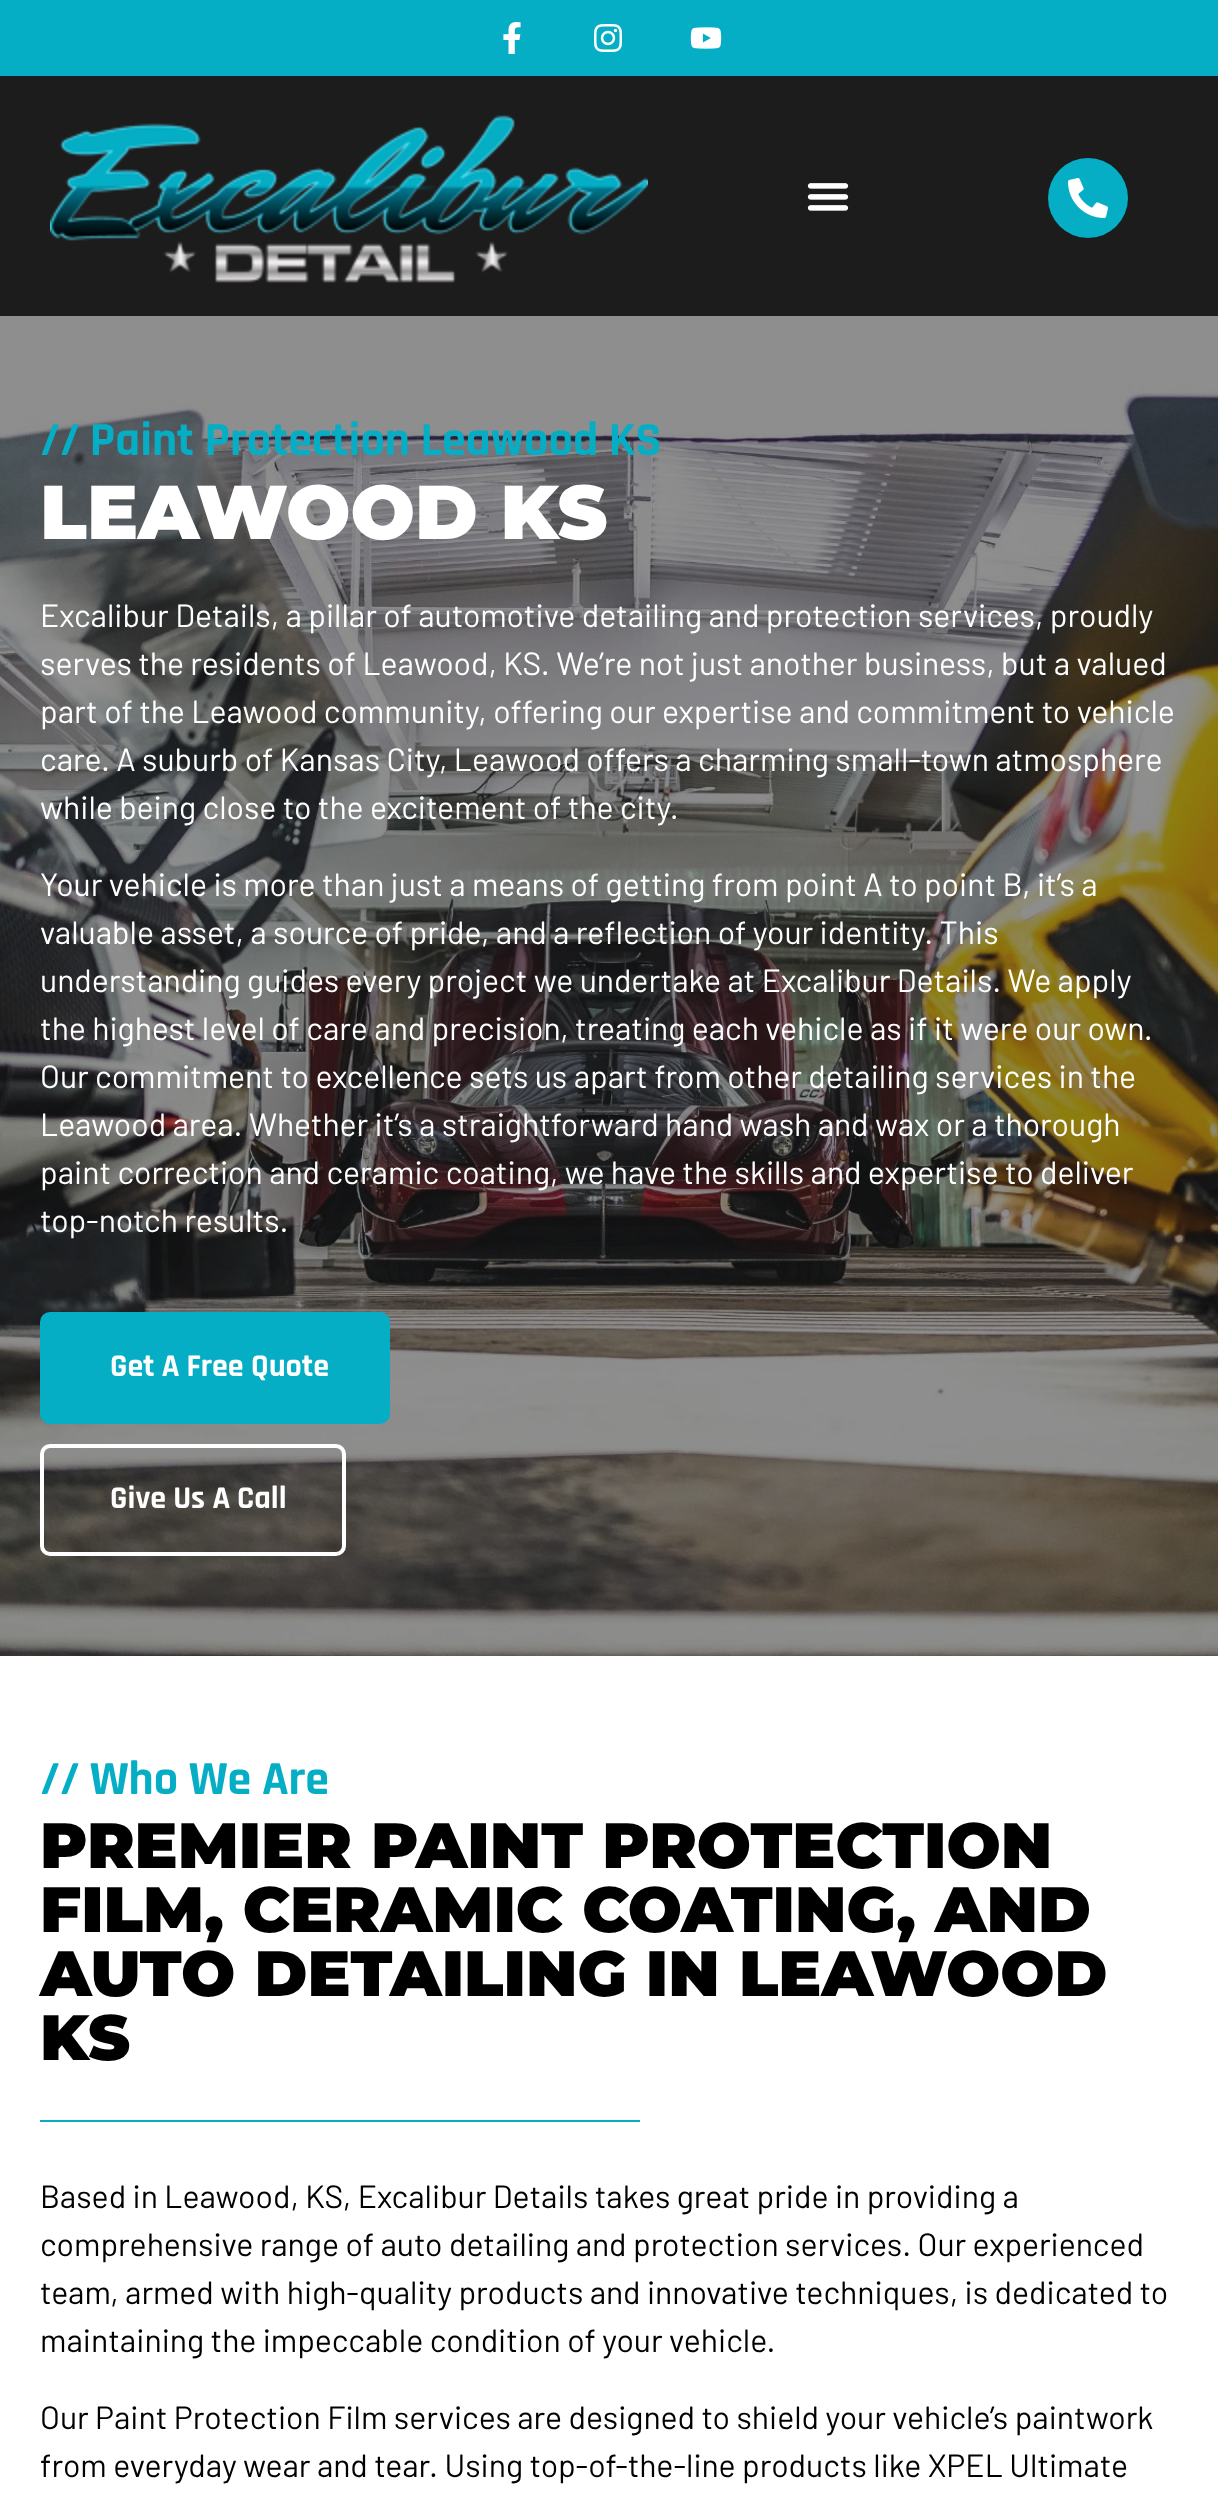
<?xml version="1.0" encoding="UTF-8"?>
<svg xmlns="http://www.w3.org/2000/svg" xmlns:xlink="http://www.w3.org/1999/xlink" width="1218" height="2497">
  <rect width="100%" height="100%" fill="#ffffff" />
  <rect y="316" width="1218" height="67" fill="#8e8e8e" />
  <rect width="1218" height="76" fill="#06aec5" />
  <image x="503" y="22" width="18" height="32" xlink:href="image1.png" />
  <image x="594" y="24" width="28" height="28" xlink:href="image2.png" />
  <image x="690" y="27" width="32" height="22" xlink:href="image3.png" />
  <rect y="76" width="1218" height="240" fill="#1c1c1c" />
  <image x="50" y="115" width="598" height="168" xlink:href="image4.png" />
  <image x="807" y="183" width="42" height="28" xlink:href="image5.png" />
  <circle cx="1088" cy="198" r="40" fill="#06aec5" />
  <image x="1068" y="178" width="40" height="40" xlink:href="image6.png" />
  <image x="0" y="383" width="1218" height="1273" xlink:href="image7.png" />
  <rect x="42" y="1314" width="346" height="108" rx="8" fill="#06aec5" stroke="#06aec5" stroke-width="4" />
  <rect x="42" y="1446" width="302" height="108" rx="8" fill="none" stroke="#ffffff" stroke-width="4" />
  <rect x="40" y="2120" width="600" height="2" fill="#06aec5" />
  <text x="40" y="455" style="font-family: Rajdhani; font-size: 48px; font-weight: bold; fill: #06aec5">// Paint Protection Leawood KS</text>
  <text x="40" y="539" style="font-family: Montserrat; font-size: 76px; font-weight: 900; fill: #ffffff">LEAWOOD KS</text>
  <text x="40" y="627" style="font-family: Barlow; font-size: 32px; fill: #ffffff">Excalibur Details, a pillar of automotive detailing and protection services, proudly</text>
  <text x="40" y="675" style="font-family: Barlow; font-size: 32px; fill: #ffffff">serves the residents of Leawood, KS. We’re not just another business, but a valued</text>
  <text x="40" y="723" style="font-family: Barlow; font-size: 32px; fill: #ffffff">part of the Leawood community, offering our expertise and commitment to vehicle</text>
  <text x="40" y="771" style="font-family: Barlow; font-size: 32px; fill: #ffffff">care. A suburb of Kansas City, Leawood offers a charming small-town atmosphere</text>
  <text x="40" y="819" style="font-family: Barlow; font-size: 32px; fill: #ffffff">while being close to the excitement of the city.</text>
  <text x="40" y="896" style="font-family: Barlow; font-size: 32px; fill: #ffffff">Your vehicle is more than just a means of getting from point A to point B, it’s a</text>
  <text x="40" y="944" style="font-family: Barlow; font-size: 32px; fill: #ffffff">valuable asset, a source of pride, and a reflection of your identity. This</text>
  <text x="40" y="992" style="font-family: Barlow; font-size: 32px; fill: #ffffff">understanding guides every project we undertake at Excalibur Details. We apply</text>
  <text x="40" y="1040" style="font-family: Barlow; font-size: 32px; fill: #ffffff">the highest level of care and precision, treating each vehicle as if it were our own.</text>
  <text x="40" y="1088" style="font-family: Barlow; font-size: 32px; fill: #ffffff">Our commitment to excellence sets us apart from other detailing services in the</text>
  <text x="40" y="1136" style="font-family: Barlow; font-size: 32px; fill: #ffffff">Leawood area. Whether it’s a straightforward hand wash and wax or a thorough</text>
  <text x="40" y="1184" style="font-family: Barlow; font-size: 32px; fill: #ffffff">paint correction and ceramic coating, we have the skills and expertise to deliver</text>
  <text x="40" y="1232" style="font-family: Barlow; font-size: 32px; fill: #ffffff">top-notch results.</text>
  <text x="110" y="1376" style="font-family: Rajdhani; font-size: 32px; font-weight: bold; fill: #ffffff">Get A Free Quote</text>
  <text x="110" y="1508" style="font-family: Rajdhani; font-size: 32px; font-weight: bold; fill: #ffffff">Give Us A Call</text>
  <text x="40" y="1794" style="font-family: Rajdhani; font-size: 48px; font-weight: bold; fill: #06aec5">// Who We Are</text>
  <text x="40" y="1868" style="font-family: Montserrat; font-size: 64px; font-weight: 900; fill: #000000">PREMIER PAINT PROTECTION</text>
  <text x="40" y="1932" style="font-family: Montserrat; font-size: 64px; font-weight: 900; fill: #000000">FILM, CERAMIC COATING, AND</text>
  <text x="40" y="1996" style="font-family: Montserrat; font-size: 64px; font-weight: 900; fill: #000000">AUTO DETAILING IN LEAWOOD</text>
  <text x="40" y="2060" style="font-family: Montserrat; font-size: 64px; font-weight: 900; fill: #000000">KS</text>
  <text x="40" y="2208" style="font-family: Barlow; font-size: 32px; fill: #000000">Based in Leawood, KS, Excalibur Details takes great pride in providing a</text>
  <text x="40" y="2256" style="font-family: Barlow; font-size: 32px; fill: #000000">comprehensive range of auto detailing and protection services. Our experienced</text>
  <text x="40" y="2304" style="font-family: Barlow; font-size: 32px; fill: #000000">team, armed with high-quality products and innovative techniques, is dedicated to</text>
  <text x="40" y="2352" style="font-family: Barlow; font-size: 32px; fill: #000000">maintaining the impeccable condition of your vehicle.</text>
  <text x="40" y="2429" style="font-family: Barlow; font-size: 32px; fill: #000000">Our Paint Protection Film services are designed to shield your vehicle’s paintwork</text>
  <text x="40" y="2477" style="font-family: Barlow; font-size: 32px; fill: #000000">from everyday wear and tear. Using top-of-the-line products like XPEL Ultimate</text>
</svg>
